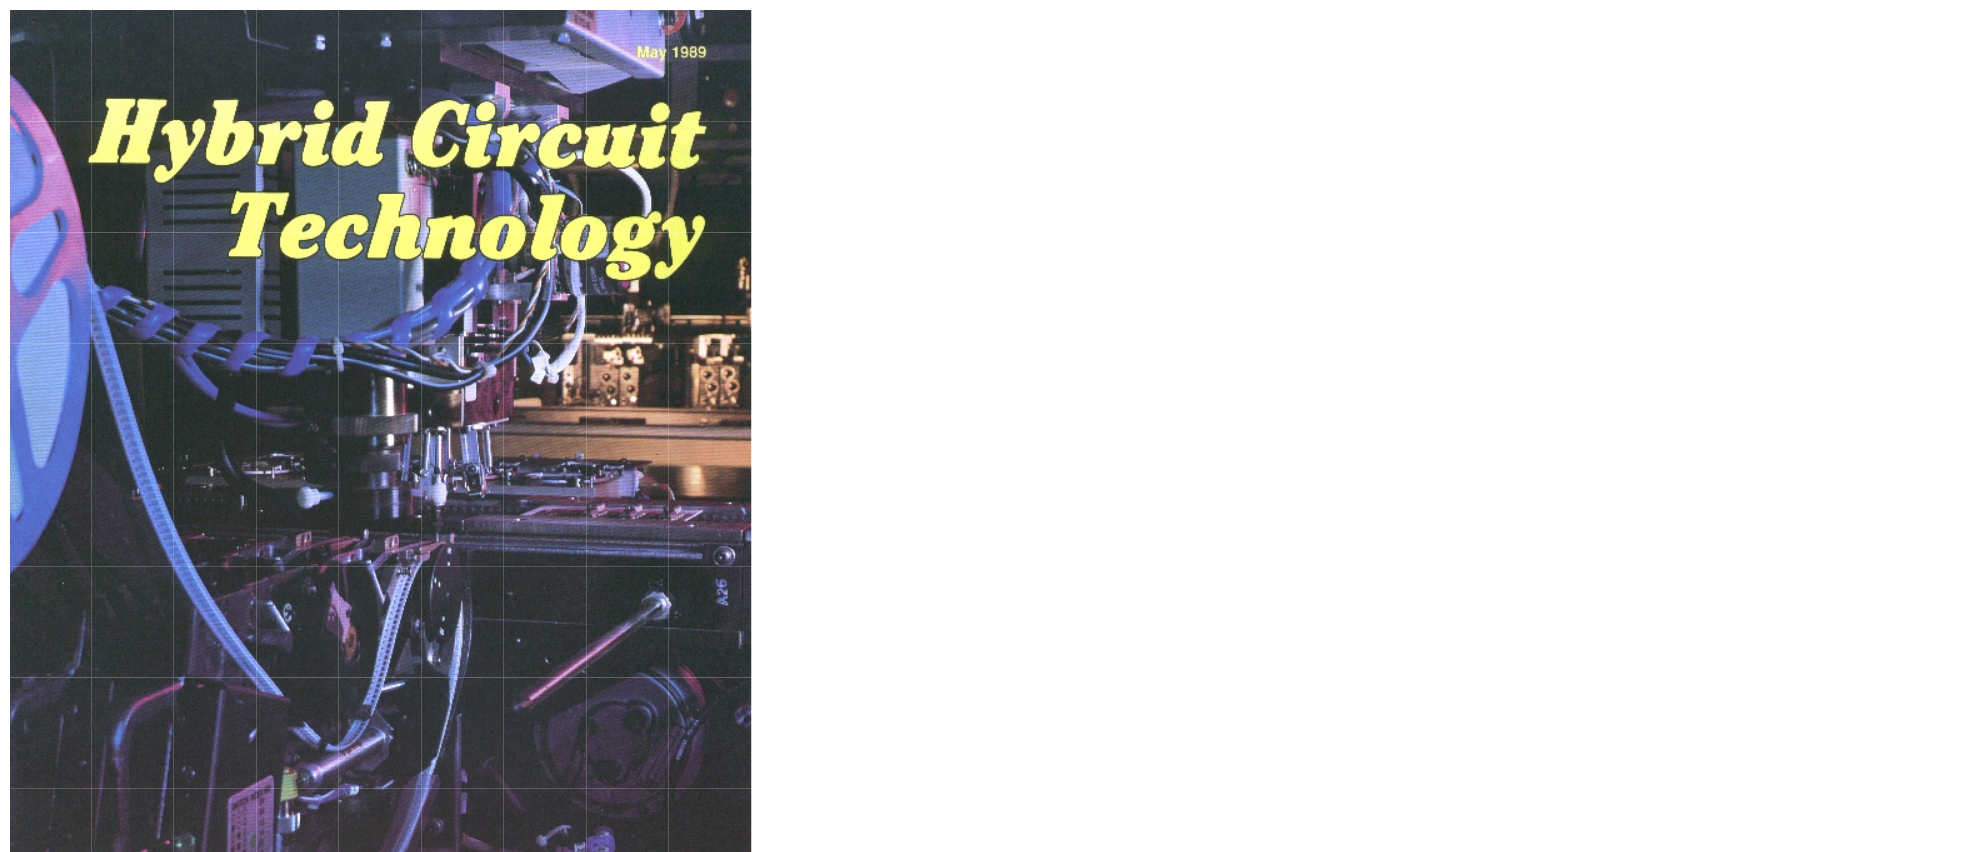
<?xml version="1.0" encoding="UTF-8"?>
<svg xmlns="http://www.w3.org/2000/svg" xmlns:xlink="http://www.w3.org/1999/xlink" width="1968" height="852">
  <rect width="100%" height="100%" fill="#ffffff" />
  <image x="10" y="10" width="82" height="112" xlink:href="image1.png" />
  <image x="91" y="10" width="83" height="112" xlink:href="image2.png" />
  <image x="173" y="10" width="84" height="112" xlink:href="image3.png" />
  <image x="256" y="10" width="83" height="112" xlink:href="image4.png" />
  <image x="338" y="10" width="84" height="112" xlink:href="image5.png" />
  <image x="421" y="10" width="83" height="112" xlink:href="image6.png" />
  <image x="503" y="10" width="84" height="112" xlink:href="image7.png" />
  <image x="586" y="10" width="83" height="112" xlink:href="image8.png" />
  <image x="668" y="10" width="84" height="112" xlink:href="image9.png" />
  <image x="10" y="121" width="82" height="112" xlink:href="image10.png" />
  <image x="91" y="121" width="83" height="112" xlink:href="image11.png" />
  <image x="173" y="121" width="84" height="112" xlink:href="image12.png" />
  <image x="256" y="121" width="83" height="112" xlink:href="image13.png" />
  <image x="338" y="121" width="84" height="112" xlink:href="image14.png" />
  <image x="421" y="121" width="83" height="112" xlink:href="image15.png" />
  <image x="503" y="121" width="84" height="112" xlink:href="image16.png" />
  <image x="586" y="121" width="83" height="112" xlink:href="image17.png" />
  <image x="668" y="121" width="84" height="112" xlink:href="image18.png" />
  <image x="10" y="232" width="82" height="112" xlink:href="image19.png" />
  <image x="91" y="232" width="83" height="112" xlink:href="image20.png" />
  <image x="173" y="232" width="84" height="112" xlink:href="image21.png" />
  <image x="256" y="232" width="83" height="112" xlink:href="image22.png" />
  <image x="338" y="232" width="84" height="112" xlink:href="image23.png" />
  <image x="421" y="232" width="83" height="112" xlink:href="image24.png" />
  <image x="503" y="232" width="84" height="112" xlink:href="image25.png" />
  <image x="586" y="232" width="83" height="112" xlink:href="image26.png" />
  <image x="668" y="232" width="84" height="112" xlink:href="image27.png" />
  <image x="10" y="343" width="82" height="112" xlink:href="image28.png" />
  <image x="91" y="343" width="83" height="112" xlink:href="image29.png" />
  <image x="173" y="343" width="84" height="112" xlink:href="image30.png" />
  <image x="256" y="343" width="83" height="112" xlink:href="image31.png" />
  <image x="338" y="343" width="84" height="112" xlink:href="image32.png" />
  <image x="421" y="343" width="83" height="112" xlink:href="image33.png" />
  <image x="503" y="343" width="84" height="112" xlink:href="image34.png" />
  <image x="586" y="343" width="83" height="112" xlink:href="image35.png" />
  <image x="668" y="343" width="84" height="112" xlink:href="image36.png" />
  <image x="10" y="455" width="82" height="112" xlink:href="image37.png" />
  <image x="91" y="455" width="83" height="112" xlink:href="image38.png" />
  <image x="173" y="455" width="84" height="112" xlink:href="image39.png" />
  <image x="256" y="455" width="83" height="112" xlink:href="image40.png" />
  <image x="338" y="455" width="84" height="112" xlink:href="image41.png" />
  <image x="421" y="455" width="83" height="112" xlink:href="image42.png" />
  <image x="503" y="455" width="84" height="112" xlink:href="image43.png" />
  <image x="586" y="455" width="83" height="112" xlink:href="image44.png" />
  <image x="668" y="455" width="84" height="112" xlink:href="image45.png" />
  <image x="10" y="566" width="82" height="112" xlink:href="image46.png" />
  <image x="91" y="566" width="83" height="112" xlink:href="image47.png" />
  <image x="173" y="566" width="84" height="112" xlink:href="image48.png" />
  <image x="256" y="566" width="83" height="112" xlink:href="image49.png" />
  <image x="338" y="566" width="84" height="112" xlink:href="image50.png" />
  <image x="421" y="566" width="83" height="112" xlink:href="image51.png" />
  <image x="503" y="566" width="84" height="112" xlink:href="image52.png" />
  <image x="586" y="566" width="83" height="112" xlink:href="image53.png" />
  <image x="668" y="566" width="84" height="112" xlink:href="image54.png" />
  <image x="10" y="677" width="82" height="112" xlink:href="image55.png" />
  <image x="91" y="677" width="83" height="112" xlink:href="image56.png" />
  <image x="173" y="677" width="84" height="112" xlink:href="image57.png" />
  <image x="256" y="677" width="83" height="112" xlink:href="image58.png" />
  <image x="338" y="677" width="84" height="112" xlink:href="image59.png" />
  <image x="421" y="677" width="83" height="112" xlink:href="image60.png" />
  <image x="503" y="677" width="84" height="112" xlink:href="image61.png" />
  <image x="586" y="677" width="83" height="112" xlink:href="image62.png" />
  <image x="668" y="677" width="84" height="112" xlink:href="image63.png" />
  <image x="10" y="788" width="82" height="64" xlink:href="image64.png" />
  <image x="91" y="788" width="83" height="64" xlink:href="image65.png" />
  <image x="173" y="788" width="84" height="64" xlink:href="image66.png" />
  <image x="256" y="788" width="83" height="64" xlink:href="image67.png" />
  <image x="338" y="788" width="84" height="64" xlink:href="image68.png" />
  <image x="421" y="788" width="83" height="64" xlink:href="image69.png" />
  <image x="503" y="788" width="84" height="64" xlink:href="image70.png" />
  <image x="586" y="788" width="83" height="64" xlink:href="image71.png" />
  <image x="668" y="788" width="84" height="64" xlink:href="image72.png" />
</svg>
